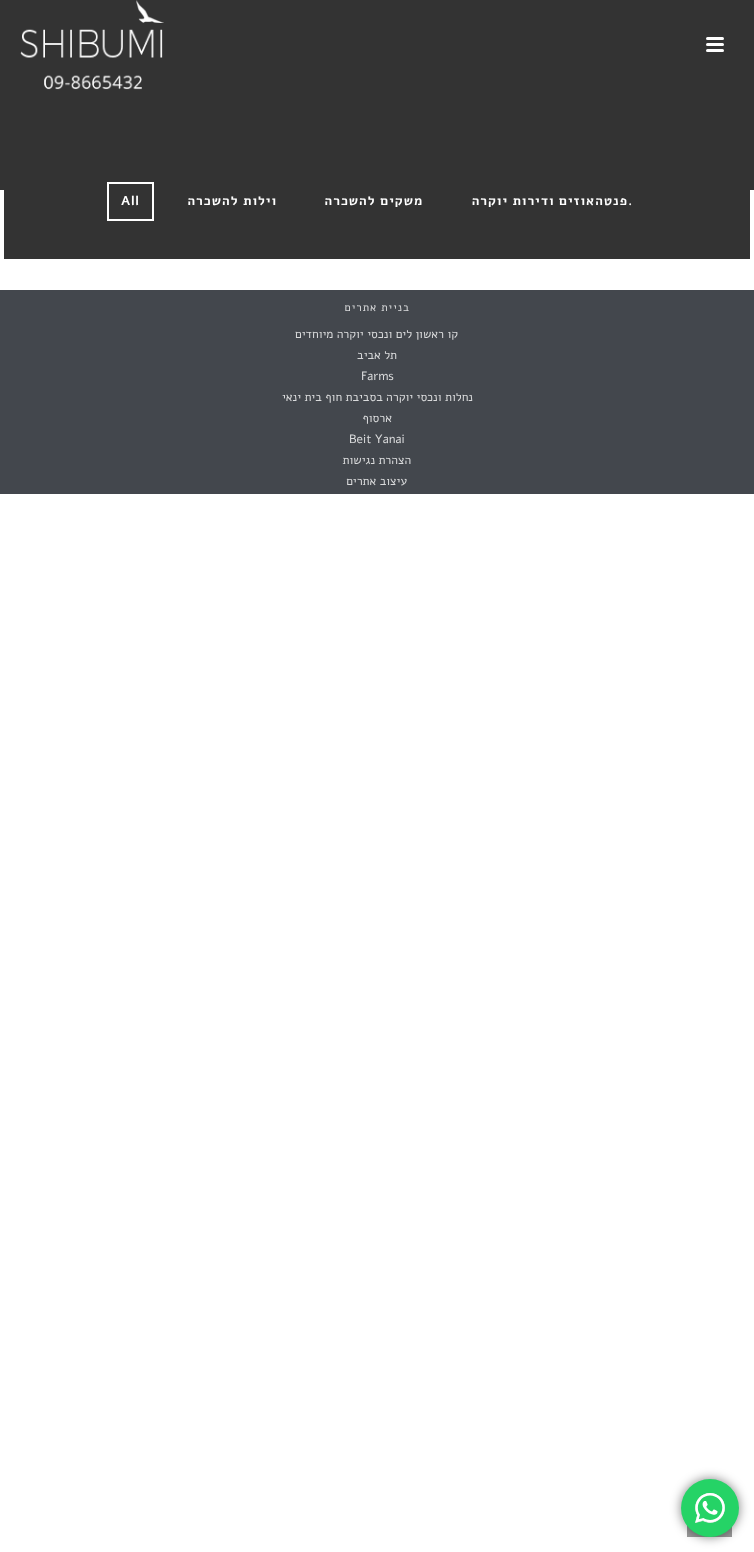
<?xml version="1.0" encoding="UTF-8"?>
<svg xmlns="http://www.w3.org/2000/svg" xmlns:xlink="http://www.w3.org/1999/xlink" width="754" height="1552">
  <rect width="100%" height="100%" fill="#ffffff" />
  <rect width="754" height="190" fill="#333333" />
  <rect x="706" y="37" width="18" height="3" rx="1.5" fill="#ffffff" />
  <rect x="706" y="43" width="18" height="3" rx="1.5" fill="#ffffff" />
  <rect x="706" y="49" width="18" height="3" rx="1.5" fill="#ffffff" />
  <image x="20" y="0" width="144" height="90" xlink:href="image1.png" />
  <rect x="4" y="190" width="746" height="69" fill="#333333" />
  <rect x="108" y="183" width="45" height="37" fill="none" stroke="#ffffff" stroke-width="2" />
  <rect y="290" width="754" height="204" fill="#43474d" />
  <rect x="687" y="1525" width="45" height="12" fill="#999999" />
  <rect x="681" y="1479" width="58" height="58" rx="29" fill="#000000" fill-opacity="0.5" filter="blur(5.5px)" />
  <circle cx="710" cy="1508" r="29" fill="#25d366" />
  <image x="695" y="1493" width="30" height="30" xlink:href="image2.png" />
  <text x="628" y="205" style="font-family: Alef; font-size: 13px; font-weight: bold; letter-spacing: 1px; fill: #ffffff">.</text>
  <text x="628" y="205" style="font-family: Alef; font-size: 13px; font-weight: bold; letter-spacing: 1px; direction: rtl; fill: #ffffff">פנטהאוזים ודירות יוקרה</text>
  <text x="423" y="205" style="font-family: Alef; font-size: 13px; font-weight: bold; letter-spacing: 1px; direction: rtl; fill: #ffffff">משקים להשכרה</text>
  <text x="277" y="205" style="font-family: Alef; font-size: 13px; font-weight: bold; letter-spacing: 1px; direction: rtl; fill: #ffffff">וילות להשכרה</text>
  <text x="121" y="205" style="font-family: Alef; font-size: 13px; font-weight: bold; letter-spacing: 1px; fill: #ffffff">All</text>
  <text x="410" y="311" style="font-family: Alef; font-size: 11px; letter-spacing: 1px; direction: rtl; fill: #d9dadb">בניית אתרים</text>
  <text x="458" y="338" style="font-family: Alef; font-size: 12px; direction: rtl; fill: #d9dadb">קו ראשון לים ונכסי יוקרה מיוחדים</text>
  <text x="397" y="359" style="font-family: Alef; font-size: 12px; direction: rtl; fill: #d9dadb">תל אביב</text>
  <text x="361" y="380" style="font-family: Alef; font-size: 12px; fill: #d9dadb">Farms</text>
  <text x="473" y="401" style="font-family: Alef; font-size: 12px; direction: rtl; fill: #d9dadb">נחלות ונכסי יוקרה בסביבת חוף בית ינאי</text>
  <text x="392" y="422" style="font-family: Alef; font-size: 12px; direction: rtl; fill: #d9dadb">ארסוף</text>
  <text x="349" y="443" style="font-family: Alef; font-size: 12px; fill: #d9dadb">Beit Yanai</text>
  <text x="411" y="464" style="font-family: Alef; font-size: 12px; direction: rtl; fill: #d9dadb">הצהרת נגישות</text>
  <text x="407" y="485" style="font-family: Alef; font-size: 12px; direction: rtl; fill: #d9dadb">עיצוב אתרים</text>
</svg>
